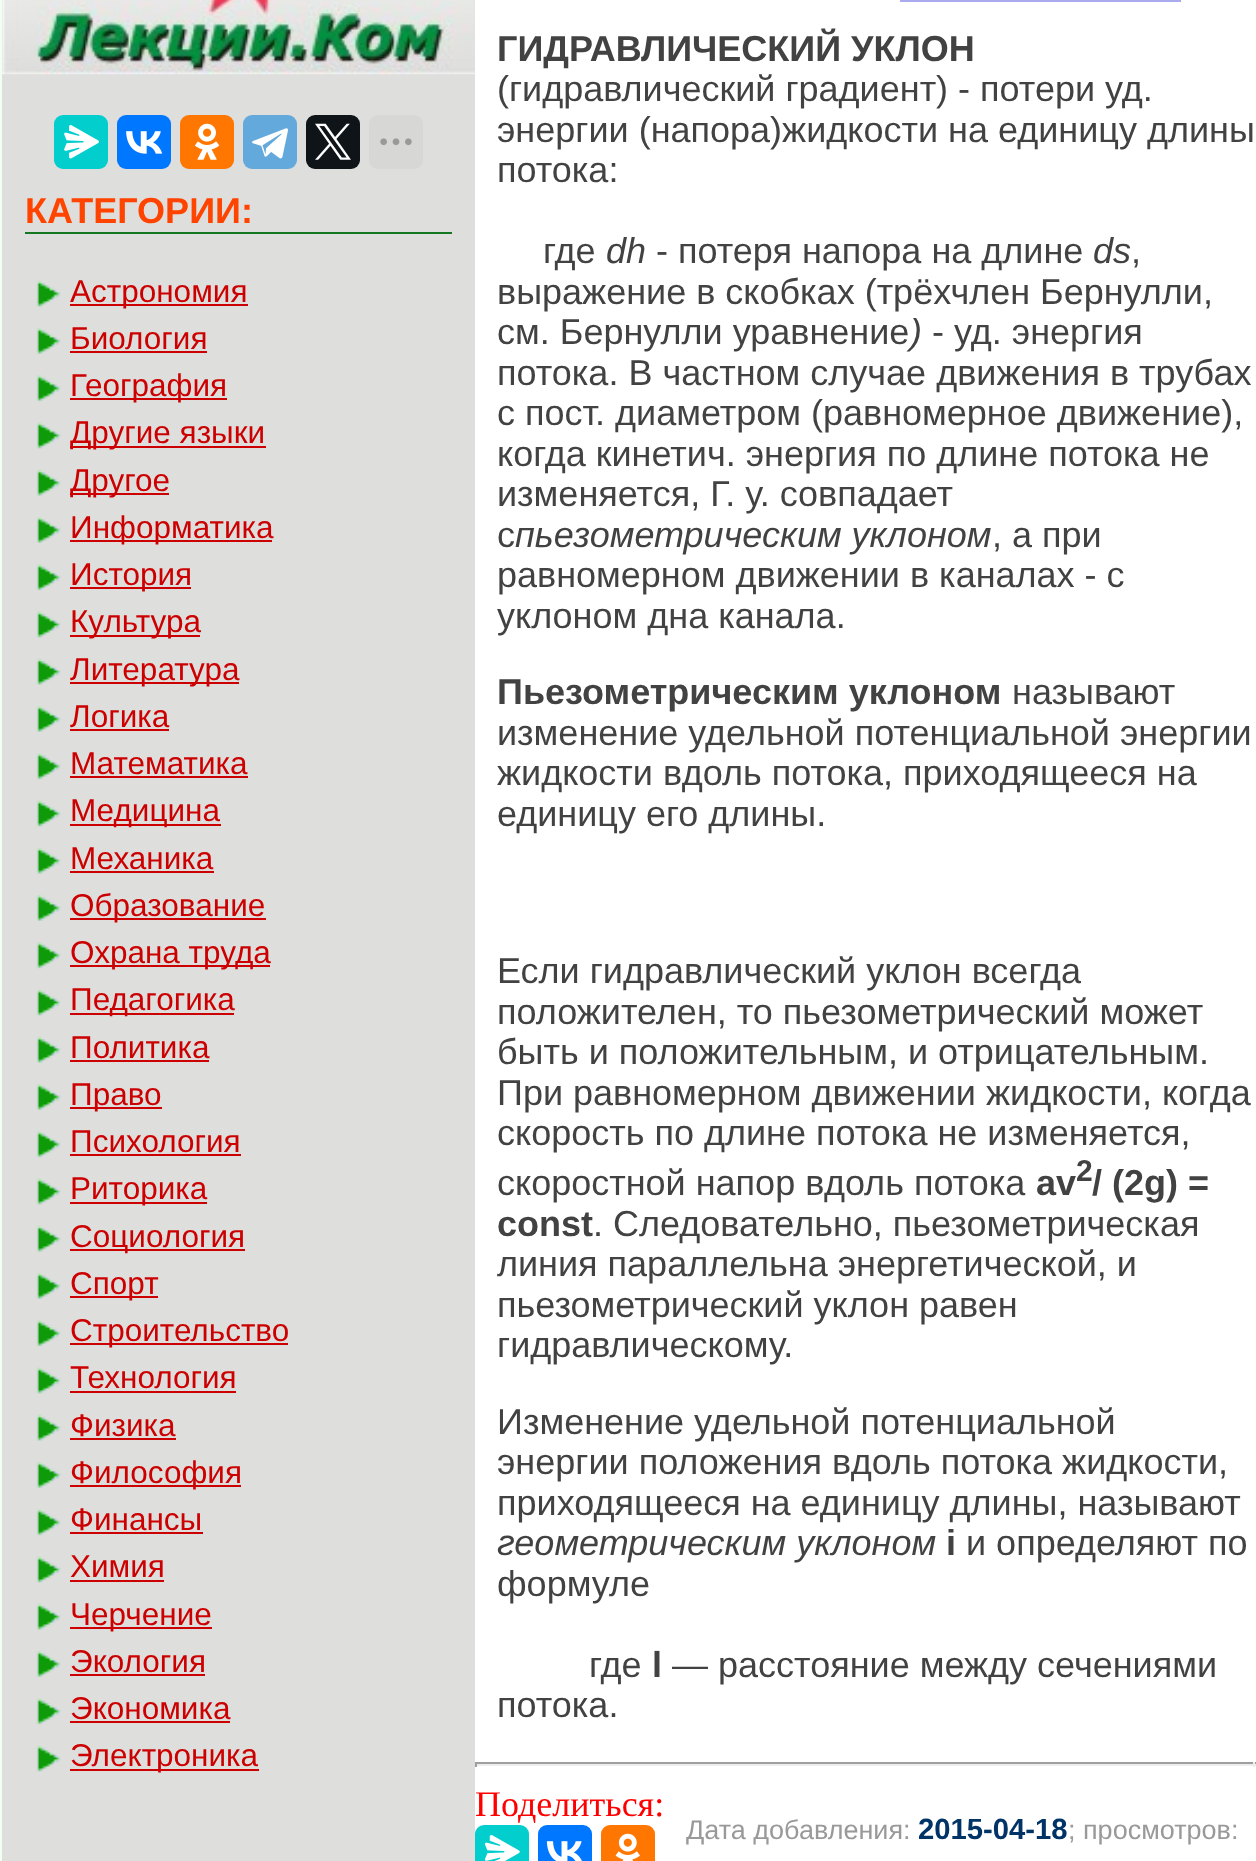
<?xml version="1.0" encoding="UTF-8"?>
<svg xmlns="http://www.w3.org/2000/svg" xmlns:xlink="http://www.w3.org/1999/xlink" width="1256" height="1861">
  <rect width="100%" height="100%" fill="#f0fff0" />
  <rect x="2" width="473" height="1861" fill="#dededc" />
  <image x="2" y="0" width="473" height="75" xlink:href="image1.png" />
  <rect x="54" y="115" width="54" height="54" rx="9" fill="#03cece" />
  <image x="64" y="125" width="35" height="34" xlink:href="image2.png" />
  <rect x="117" y="115" width="54" height="54" rx="9" fill="#0077ff" />
  <image x="126" y="131" width="37" height="23" xlink:href="image3.png" />
  <rect x="180" y="115" width="54" height="54" rx="9" fill="#ff7700" />
  <image x="195" y="123" width="25" height="37" xlink:href="image4.png" />
  <rect x="243" y="115" width="54" height="54" rx="9" fill="#64a9dc" />
  <image x="252" y="128" width="36" height="31" xlink:href="image5.png" />
  <rect x="306" y="115" width="54" height="54" rx="9" fill="#0f1419" />
  <image x="315" y="123" width="36" height="37" xlink:href="image6.png" />
  <rect x="369" y="115" width="54" height="54" rx="9" fill="#d7d7d5" />
  <image x="380" y="138" width="32" height="8" xlink:href="image7.png" />
  <rect x="25" y="232" width="427" height="2" fill="#157721" />
  <image x="36" y="280" width="25" height="27" xlink:href="image8.png" />
  <rect x="70" y="304" width="178" height="2" fill="#cc0000" />
  <image x="36" y="328" width="25" height="26" xlink:href="image9.png" />
  <rect x="70" y="351" width="137" height="2" fill="#cc0000" />
  <image x="36" y="375" width="25" height="27" xlink:href="image10.png" />
  <rect x="70" y="398" width="157" height="2" fill="#cc0000" />
  <image x="36" y="422" width="25" height="27" xlink:href="image11.png" />
  <rect x="70" y="446" width="196" height="2" fill="#cc0000" />
  <image x="36" y="469" width="25" height="27" xlink:href="image12.png" />
  <rect x="70" y="493" width="99" height="2" fill="#cc0000" />
  <image x="36" y="517" width="25" height="26" xlink:href="image9.png" />
  <rect x="70" y="540" width="202" height="2" fill="#cc0000" />
  <image x="36" y="564" width="25" height="27" xlink:href="image10.png" />
  <rect x="70" y="587" width="121" height="2" fill="#cc0000" />
  <image x="36" y="611" width="25" height="27" xlink:href="image13.png" />
  <rect x="70" y="635" width="130" height="2" fill="#cc0000" />
  <image x="36" y="658" width="25" height="27" xlink:href="image8.png" />
  <rect x="70" y="682" width="169" height="2" fill="#cc0000" />
  <image x="36" y="706" width="25" height="26" xlink:href="image9.png" />
  <rect x="70" y="729" width="99" height="2" fill="#cc0000" />
  <image x="36" y="753" width="25" height="27" xlink:href="image10.png" />
  <rect x="70" y="776" width="178" height="2" fill="#cc0000" />
  <image x="36" y="800" width="25" height="27" xlink:href="image14.png" />
  <rect x="70" y="824" width="151" height="2" fill="#cc0000" />
  <image x="36" y="847" width="25" height="27" xlink:href="image8.png" />
  <rect x="70" y="871" width="144" height="2" fill="#cc0000" />
  <image x="36" y="895" width="25" height="26" xlink:href="image9.png" />
  <rect x="70" y="918" width="196" height="2" fill="#cc0000" />
  <image x="36" y="942" width="25" height="27" xlink:href="image10.png" />
  <rect x="70" y="965" width="200" height="2" fill="#cc0000" />
  <image x="36" y="989" width="25" height="27" xlink:href="image13.png" />
  <rect x="70" y="1013" width="164" height="2" fill="#cc0000" />
  <image x="36" y="1036" width="25" height="27" xlink:href="image8.png" />
  <rect x="70" y="1060" width="139" height="2" fill="#cc0000" />
  <image x="36" y="1084" width="25" height="26" xlink:href="image9.png" />
  <rect x="70" y="1107" width="92" height="2" fill="#cc0000" />
  <image x="36" y="1131" width="25" height="27" xlink:href="image10.png" />
  <rect x="70" y="1154" width="171" height="2" fill="#cc0000" />
  <image x="36" y="1178" width="25" height="27" xlink:href="image15.png" />
  <rect x="70" y="1202" width="137" height="2" fill="#cc0000" />
  <image x="36" y="1225" width="25" height="27" xlink:href="image8.png" />
  <rect x="70" y="1249" width="175" height="2" fill="#cc0000" />
  <image x="36" y="1273" width="25" height="26" xlink:href="image9.png" />
  <rect x="70" y="1296" width="88" height="2" fill="#cc0000" />
  <image x="36" y="1320" width="25" height="27" xlink:href="image10.png" />
  <rect x="70" y="1343" width="218" height="2" fill="#cc0000" />
  <image x="36" y="1367" width="25" height="27" xlink:href="image13.png" />
  <rect x="70" y="1391" width="166" height="2" fill="#cc0000" />
  <image x="36" y="1414" width="25" height="27" xlink:href="image8.png" />
  <rect x="70" y="1438" width="106" height="2" fill="#cc0000" />
  <image x="36" y="1462" width="25" height="26" xlink:href="image9.png" />
  <rect x="70" y="1485" width="171" height="2" fill="#cc0000" />
  <image x="36" y="1509" width="25" height="27" xlink:href="image10.png" />
  <rect x="70" y="1532" width="133" height="2" fill="#cc0000" />
  <image x="36" y="1556" width="25" height="27" xlink:href="image13.png" />
  <rect x="70" y="1580" width="94" height="2" fill="#cc0000" />
  <image x="36" y="1603" width="25" height="27" xlink:href="image8.png" />
  <rect x="70" y="1627" width="142" height="2" fill="#cc0000" />
  <image x="36" y="1651" width="25" height="26" xlink:href="image9.png" />
  <rect x="70" y="1674" width="135" height="2" fill="#cc0000" />
  <image x="36" y="1698" width="25" height="27" xlink:href="image10.png" />
  <rect x="70" y="1721" width="160" height="2" fill="#cc0000" />
  <image x="36" y="1745" width="25" height="27" xlink:href="image13.png" />
  <rect x="70" y="1769" width="189" height="2" fill="#cc0000" />
  <rect x="475" width="781" height="1861" fill="#ffffff" />
  <rect x="901" y="-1" width="279" height="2" fill="none" stroke="#aaaaee" stroke-width="2" />
  <rect x="475" y="1762" width="781" height="2" fill="#9f9f9f" />
  <rect x="1253" y="1762" width="2" height="5" fill="#eeeeee" />
  <rect x="475" y="1764" width="781" height="2" fill="#eeeeee" />
  <rect x="475" y="1762" width="2" height="5" fill="#9f9f9f" />
  <rect x="475" y="1825" width="54" height="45" rx="9" fill="#03cece" />
  <image x="484" y="1835" width="36" height="26" xlink:href="image16.png" />
  <rect x="538" y="1825" width="54" height="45" rx="9" fill="#0077ff" />
  <image x="546" y="1841" width="36" height="20" xlink:href="image17.png" />
  <rect x="601" y="1825" width="54" height="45" rx="9" fill="#ff7700" />
  <image x="615" y="1833" width="25" height="28" xlink:href="image18.png" />
  <text x="25" y="223" style="font-family: Liberation Sans; font-size: 36px; font-weight: bold; fill: #ff4400">КАТЕГОРИИ:</text>
  <text x="70" y="302" style="font-family: Liberation Sans; font-size: 31.5px; fill: #cc0000">Астрономия</text>
  <text x="70" y="349" style="font-family: Liberation Sans; font-size: 31.5px; fill: #cc0000">Биология</text>
  <text x="70" y="396" style="font-family: Liberation Sans; font-size: 31.5px; fill: #cc0000">География</text>
  <text x="70" y="443" style="font-family: Liberation Sans; font-size: 31.5px; fill: #cc0000">Другие языки</text>
  <text x="70" y="491" style="font-family: Liberation Sans; font-size: 31.5px; fill: #cc0000">Другое</text>
  <text x="70" y="538" style="font-family: Liberation Sans; font-size: 31.5px; fill: #cc0000">Информатика</text>
  <text x="70" y="585" style="font-family: Liberation Sans; font-size: 31.5px; fill: #cc0000">История</text>
  <text x="70" y="632" style="font-family: Liberation Sans; font-size: 31.5px; fill: #cc0000">Культура</text>
  <text x="70" y="680" style="font-family: Liberation Sans; font-size: 31.5px; fill: #cc0000">Литература</text>
  <text x="70" y="727" style="font-family: Liberation Sans; font-size: 31.5px; fill: #cc0000">Логика</text>
  <text x="70" y="774" style="font-family: Liberation Sans; font-size: 31.5px; fill: #cc0000">Математика</text>
  <text x="70" y="821" style="font-family: Liberation Sans; font-size: 31.5px; fill: #cc0000">Медицина</text>
  <text x="70" y="869" style="font-family: Liberation Sans; font-size: 31.5px; fill: #cc0000">Механика</text>
  <text x="70" y="916" style="font-family: Liberation Sans; font-size: 31.5px; fill: #cc0000">Образование</text>
  <text x="70" y="963" style="font-family: Liberation Sans; font-size: 31.5px; fill: #cc0000">Охрана труда</text>
  <text x="70" y="1010" style="font-family: Liberation Sans; font-size: 31.5px; fill: #cc0000">Педагогика</text>
  <text x="70" y="1058" style="font-family: Liberation Sans; font-size: 31.5px; fill: #cc0000">Политика</text>
  <text x="70" y="1105" style="font-family: Liberation Sans; font-size: 31.5px; fill: #cc0000">Право</text>
  <text x="70" y="1152" style="font-family: Liberation Sans; font-size: 31.5px; fill: #cc0000">Психология</text>
  <text x="70" y="1199" style="font-family: Liberation Sans; font-size: 31.5px; fill: #cc0000">Риторика</text>
  <text x="70" y="1247" style="font-family: Liberation Sans; font-size: 31.5px; fill: #cc0000">Социология</text>
  <text x="70" y="1294" style="font-family: Liberation Sans; font-size: 31.5px; fill: #cc0000">Спорт</text>
  <text x="70" y="1341" style="font-family: Liberation Sans; font-size: 31.5px; fill: #cc0000">Строительство</text>
  <text x="70" y="1388" style="font-family: Liberation Sans; font-size: 31.5px; fill: #cc0000">Технология</text>
  <text x="70" y="1436" style="font-family: Liberation Sans; font-size: 31.5px; fill: #cc0000">Физика</text>
  <text x="70" y="1483" style="font-family: Liberation Sans; font-size: 31.5px; fill: #cc0000">Философия</text>
  <text x="70" y="1530" style="font-family: Liberation Sans; font-size: 31.5px; fill: #cc0000">Финансы</text>
  <text x="70" y="1577" style="font-family: Liberation Sans; font-size: 31.5px; fill: #cc0000">Химия</text>
  <text x="70" y="1625" style="font-family: Liberation Sans; font-size: 31.5px; fill: #cc0000">Черчение</text>
  <text x="70" y="1672" style="font-family: Liberation Sans; font-size: 31.5px; fill: #cc0000">Экология</text>
  <text x="70" y="1719" style="font-family: Liberation Sans; font-size: 31.5px; fill: #cc0000">Экономика</text>
  <text x="70" y="1766" style="font-family: Liberation Sans; font-size: 31.5px; fill: #cc0000">Электроника</text>
  <text x="497" y="61" style="font-family: Liberation Sans; font-size: 36px; font-weight: bold; fill: #424242">ГИДРАВЛИЧЕСКИЙ УКЛОН</text>
  <text x="497" y="101" style="font-family: Liberation Sans; font-size: 36px; fill: #424242">(гидравлический градиент) - потери уд.</text>
  <text x="497" y="142" style="font-family: Liberation Sans; font-size: 36px; fill: #424242">энергии (напора)жидкости на единицу длины</text>
  <text x="497" y="182" style="font-family: Liberation Sans; font-size: 36px; fill: #424242">потока:</text>
  <text x="543" y="263" style="font-family: Liberation Sans; font-size: 36px; fill: #424242">где</text>
  <text x="606" y="263" style="font-family: Liberation Sans; font-size: 36px; font-style: italic; fill: #424242">dh</text>
  <text x="656" y="263" style="font-family: Liberation Sans; font-size: 36px; fill: #424242">- потеря напора на длине</text>
  <text x="1093" y="263" style="font-family: Liberation Sans; font-size: 36px; font-style: italic; fill: #424242">ds</text>
  <text x="1131" y="263" style="font-family: Liberation Sans; font-size: 36px; fill: #424242">,</text>
  <text x="497" y="304" style="font-family: Liberation Sans; font-size: 36px; fill: #424242">выражение в скобках (трёхчлен Бернулли,</text>
  <text x="497" y="344" style="font-family: Liberation Sans; font-size: 36px; fill: #424242">см. Бернулли уравнение</text>
  <text x="910" y="344" style="font-family: Liberation Sans; font-size: 36px; font-style: italic; fill: #424242">)</text>
  <text x="932" y="344" style="font-family: Liberation Sans; font-size: 36px; fill: #424242">- уд. энергия</text>
  <text x="497" y="385" style="font-family: Liberation Sans; font-size: 36px; fill: #424242">потока. В частном случае движения в трубах</text>
  <text x="497" y="425" style="font-family: Liberation Sans; font-size: 36px; fill: #424242">с пост. диаметром (равномерное движение),</text>
  <text x="497" y="466" style="font-family: Liberation Sans; font-size: 36px; fill: #424242">когда кинетич. энергия по длине потока не</text>
  <text x="497" y="506" style="font-family: Liberation Sans; font-size: 36px; fill: #424242">изменяется, Г. у. совпадает</text>
  <text x="497" y="547" style="font-family: Liberation Sans; font-size: 36px; fill: #424242">с</text>
  <text x="515" y="547" style="font-family: Liberation Sans; font-size: 36px; font-style: italic; fill: #424242">пьезометрическим уклоном</text>
  <text x="992" y="547" style="font-family: Liberation Sans; font-size: 36px; fill: #424242">, а при</text>
  <text x="497" y="587" style="font-family: Liberation Sans; font-size: 36px; fill: #424242">равномерном движении в каналах - с</text>
  <text x="497" y="628" style="font-family: Liberation Sans; font-size: 36px; fill: #424242">уклоном дна канала.</text>
  <text x="497" y="704" style="font-family: Liberation Sans; font-size: 36px; font-weight: bold; fill: #424242">Пьезометрическим уклоном</text>
  <text x="1012" y="704" style="font-family: Liberation Sans; font-size: 36px; fill: #424242">называют</text>
  <text x="497" y="745" style="font-family: Liberation Sans; font-size: 36px; fill: #424242">изменение удельной потенциальной энергии</text>
  <text x="497" y="785" style="font-family: Liberation Sans; font-size: 36px; fill: #424242">жидкости вдоль потока, приходящееся на</text>
  <text x="497" y="826" style="font-family: Liberation Sans; font-size: 36px; fill: #424242">единицу его длины.</text>
  <text x="497" y="983" style="font-family: Liberation Sans; font-size: 36px; fill: #424242">Если гидравлический уклон всегда</text>
  <text x="497" y="1024" style="font-family: Liberation Sans; font-size: 36px; fill: #424242">положителен, то пьезометрический может</text>
  <text x="497" y="1064" style="font-family: Liberation Sans; font-size: 36px; fill: #424242">быть и положительным, и отрицательным.</text>
  <text x="497" y="1105" style="font-family: Liberation Sans; font-size: 36px; fill: #424242">При равномерном движении жидкости, когда</text>
  <text x="497" y="1145" style="font-family: Liberation Sans; font-size: 36px; fill: #424242">скорость по длине потока не изменяется,</text>
  <text x="497" y="1195" style="font-family: Liberation Sans; font-size: 36px; fill: #424242">скоростной напор вдоль потока</text>
  <text x="1036" y="1195" style="font-family: Liberation Sans; font-size: 36px; font-weight: bold; fill: #424242">av</text>
  <text x="1076" y="1181" style="font-family: Liberation Sans; font-size: 30px; font-weight: bold; fill: #424242">2</text>
  <text x="1092" y="1195" style="font-family: Liberation Sans; font-size: 36px; font-weight: bold; fill: #424242">/ (2g) =</text>
  <text x="497" y="1236" style="font-family: Liberation Sans; font-size: 36px; font-weight: bold; fill: #424242">const</text>
  <text x="593" y="1236" style="font-family: Liberation Sans; font-size: 36px; fill: #424242">. Следовательно, пьезометрическая</text>
  <text x="497" y="1276" style="font-family: Liberation Sans; font-size: 36px; fill: #424242">линия параллельна энергетической, и</text>
  <text x="497" y="1317" style="font-family: Liberation Sans; font-size: 36px; fill: #424242">пьезометрический уклон равен</text>
  <text x="497" y="1357" style="font-family: Liberation Sans; font-size: 36px; fill: #424242">гидравлическому.</text>
  <text x="497" y="1434" style="font-family: Liberation Sans; font-size: 36px; fill: #424242">Изменение удельной потенциальной</text>
  <text x="497" y="1474" style="font-family: Liberation Sans; font-size: 36px; fill: #424242">энергии положения вдоль потока жидкости,</text>
  <text x="497" y="1515" style="font-family: Liberation Sans; font-size: 36px; fill: #424242">приходящееся на единицу длины, называют</text>
  <text x="497" y="1555" style="font-family: Liberation Sans; font-size: 36px; font-style: italic; fill: #424242">геометрическим уклоном</text>
  <text x="946" y="1555" style="font-family: Liberation Sans; font-size: 36px; font-weight: bold; fill: #424242">i</text>
  <text x="966" y="1555" style="font-family: Liberation Sans; font-size: 36px; fill: #424242">и определяют по</text>
  <text x="497" y="1596" style="font-family: Liberation Sans; font-size: 36px; fill: #424242">формуле</text>
  <text x="589" y="1677" style="font-family: Liberation Sans; font-size: 36px; fill: #424242">где</text>
  <text x="652" y="1677" style="font-family: Liberation Sans; font-size: 36px; font-weight: bold; fill: #424242">l</text>
  <text x="672" y="1677" style="font-family: Liberation Sans; font-size: 36px; fill: #424242">— расстояние между сечениями</text>
  <text x="497" y="1717" style="font-family: Liberation Sans; font-size: 36px; fill: #424242">потока.</text>
  <text x="475" y="1816" style="font-family: Liberation Serif; font-size: 36px; fill: #ff0000">Поделиться:</text>
  <text x="686" y="1839" style="font-family: Liberation Sans; font-size: 27px; fill: #999999">Дата добавления:</text>
  <text x="918" y="1839" style="font-family: Liberation Sans; font-size: 29.25px; font-weight: bold; fill: #003366">2015-04-18</text>
  <text x="1068" y="1839" style="font-family: Liberation Sans; font-size: 27px; fill: #999999">; просмотров:</text>
</svg>
